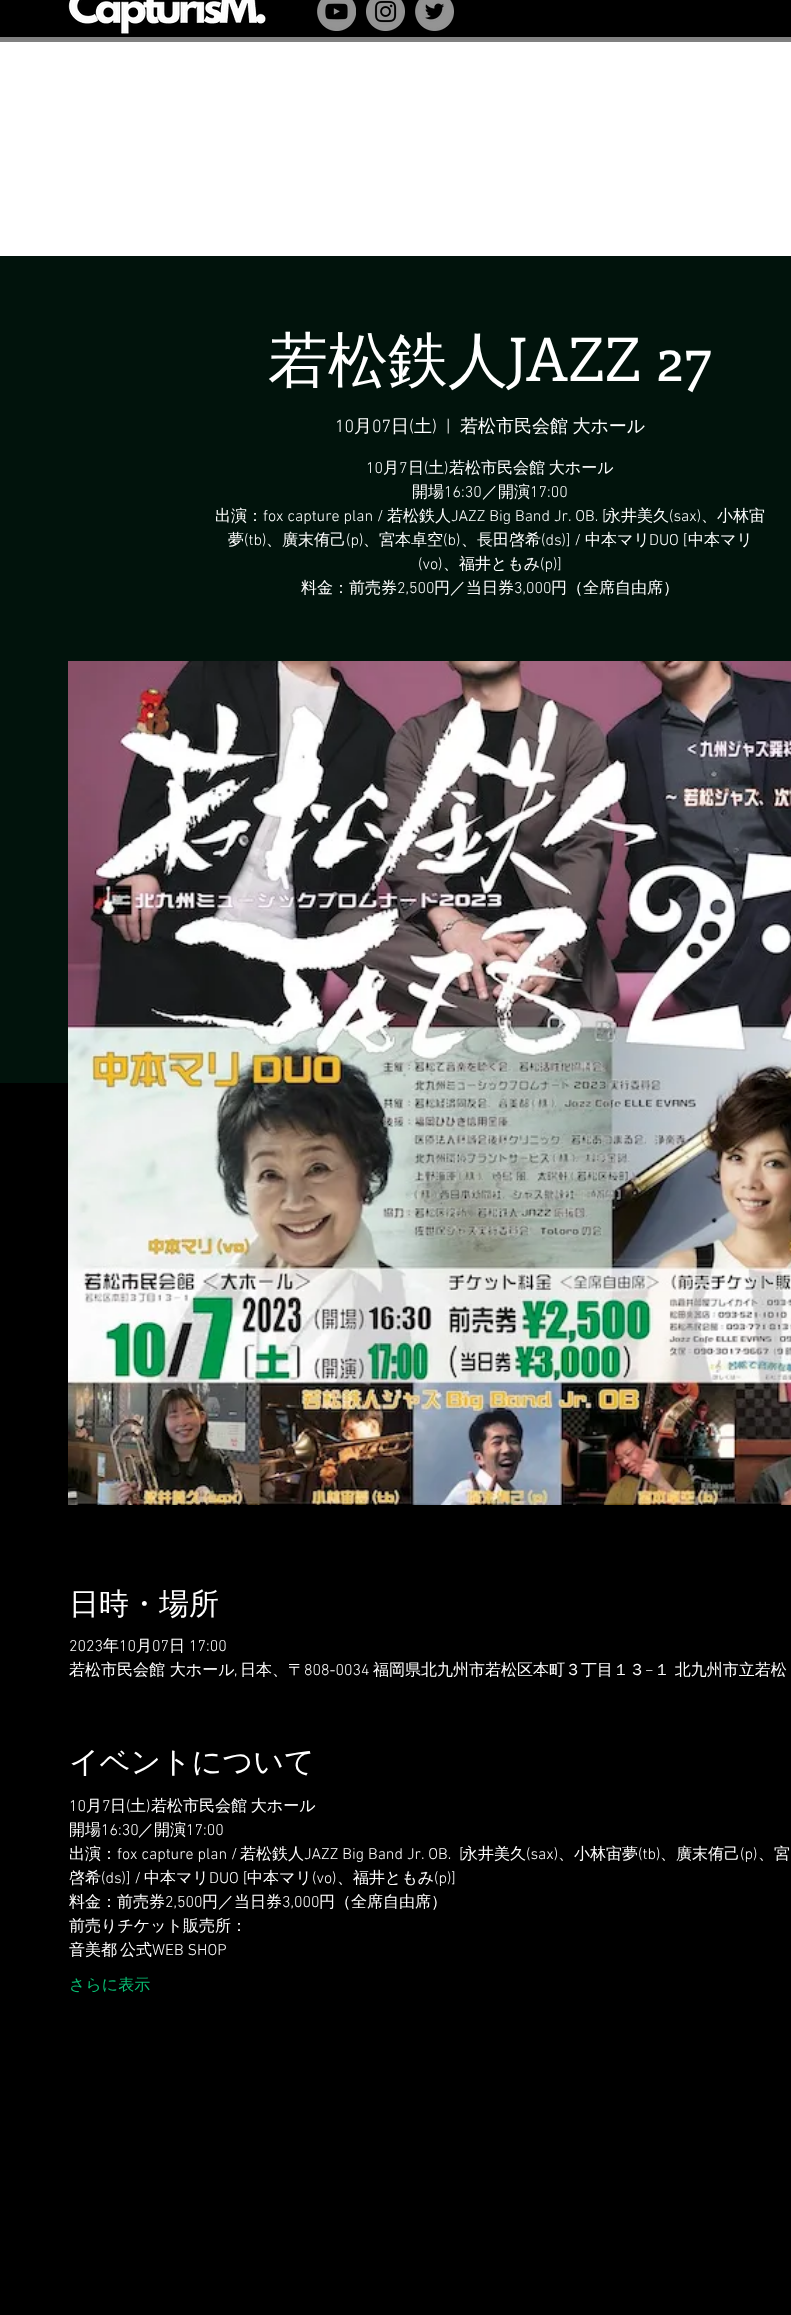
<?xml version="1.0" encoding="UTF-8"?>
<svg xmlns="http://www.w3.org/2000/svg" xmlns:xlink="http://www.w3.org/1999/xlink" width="791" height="2315">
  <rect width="100%" height="100%" fill="#ffffff" />
  <rect width="791" height="37" fill="#000000" />
  <rect y="37" width="791" height="5" fill="#808080" />
  <image x="68" y="0" width="198" height="34" xlink:href="image1.png" />
  <image x="317" y="0" width="39" height="31" xlink:href="image2.png" />
  <image x="366" y="0" width="39" height="31" xlink:href="image3.png" />
  <image x="415" y="0" width="39" height="31" xlink:href="image4.png" />
  <rect y="256" width="791" height="827" fill="#01130c" />
  <rect y="1083" width="791" height="1232" fill="#000000" />
  <image x="68" y="661" width="723" height="844" xlink:href="image5.png" />
  <text x="268" y="381" style="font-family: WenQuanYi Zen Hei; font-size: 60px; font-weight: 500; fill: #ffffff">若松鉄人</text>
  <text x="508" y="381" style="font-family: Enriqueta; font-size: 60px; fill: #ffffff">JAZZ 27</text>
  <text x="335" y="432" style="font-family: 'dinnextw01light'; font-size: 18px; font-weight: 300; fill: #ffffff">10</text>
  <text x="354" y="432" style="font-family: WenQuanYi Zen Hei; font-size: 18px; font-weight: 500; fill: #ffffff">月</text>
  <text x="372" y="432" style="font-family: 'dinnextw01light'; font-size: 18px; font-weight: 300; fill: #ffffff">07</text>
  <text x="391" y="432" style="font-family: WenQuanYi Zen Hei; font-size: 18px; font-weight: 500; fill: #ffffff">日</text>
  <text x="409" y="432" style="font-family: 'dinnextw01light'; font-size: 18px; font-weight: 300; fill: #ffffff">(</text>
  <text x="414" y="432" style="font-family: WenQuanYi Zen Hei; font-size: 18px; font-weight: 500; fill: #ffffff">土</text>
  <text x="432" y="432" style="font-family: 'dinnextw01light'; font-size: 18px; font-weight: 300; fill: #ffffff">)</text>
  <text x="446" y="432" style="font-family: 'dinnextw01light'; font-size: 18px; font-weight: 300; fill: #ffffff">|</text>
  <text x="460" y="432" word-spacing="-1" style="font-family: WenQuanYi Zen Hei; font-size: 18px; font-weight: 500; fill: #ffffff">若松市民会館 大ホール</text>
  <text x="366" y="473" style="font-family: 'dinnextw01light'; font-size: 16px; font-weight: 300; fill: #ffffff">10</text>
  <text x="383" y="473" style="font-family: WenQuanYi Zen Hei; font-size: 16px; font-weight: 500; fill: #ffffff">月</text>
  <text x="399" y="473" style="font-family: 'dinnextw01light'; font-size: 16px; font-weight: 300; fill: #ffffff">7</text>
  <text x="408" y="473" style="font-family: WenQuanYi Zen Hei; font-size: 16px; font-weight: 500; fill: #ffffff">日</text>
  <text x="424" y="473" style="font-family: 'dinnextw01light'; font-size: 16px; font-weight: 300; fill: #ffffff">(</text>
  <text x="428" y="473" style="font-family: WenQuanYi Zen Hei; font-size: 16px; font-weight: 500; fill: #ffffff">土</text>
  <text x="444" y="473" style="font-family: 'dinnextw01light'; font-size: 16px; font-weight: 300; fill: #ffffff">)</text>
  <text x="449" y="473" word-spacing="-1" style="font-family: WenQuanYi Zen Hei; font-size: 16px; font-weight: 500; fill: #ffffff">若松市民会館 大ホール</text>
  <text x="412" y="497" style="font-family: WenQuanYi Zen Hei; font-size: 16px; font-weight: 500; fill: #ffffff">開場</text>
  <text x="444" y="497" style="font-family: 'dinnextw01light'; font-size: 16px; font-weight: 300; fill: #ffffff">16:30</text>
  <text x="482" y="497" style="font-family: WenQuanYi Zen Hei; font-size: 16px; font-weight: 500; fill: #ffffff">／開演</text>
  <text x="530" y="497" style="font-family: 'dinnextw01light'; font-size: 16px; font-weight: 300; fill: #ffffff">17:00</text>
  <text x="215" y="521" style="font-family: WenQuanYi Zen Hei; font-size: 16px; font-weight: 500; fill: #ffffff">出演：</text>
  <text x="263" y="521" style="font-family: 'dinnextw01light'; font-size: 16px; font-weight: 300; fill: #ffffff">fox capture plan /</text>
  <text x="387" y="521" style="font-family: WenQuanYi Zen Hei; font-size: 16px; font-weight: 500; fill: #ffffff">若松鉄人</text>
  <text x="451" y="521" style="font-family: 'dinnextw01light'; font-size: 16px; font-weight: 300; fill: #ffffff">JAZZ Big Band Jr. OB. [</text>
  <text x="605" y="521" style="font-family: WenQuanYi Zen Hei; font-size: 16px; font-weight: 500; fill: #ffffff">永井美久</text>
  <text x="669" y="521" style="font-family: 'dinnextw01light'; font-size: 16px; font-weight: 300; fill: #ffffff">(sax)</text>
  <text x="701" y="521" style="font-family: WenQuanYi Zen Hei; font-size: 16px; font-weight: 500; fill: #ffffff">、小林宙</text>
  <text x="228" y="545" style="font-family: WenQuanYi Zen Hei; font-size: 16px; font-weight: 500; fill: #ffffff">夢</text>
  <text x="244" y="545" style="font-family: 'dinnextw01light'; font-size: 16px; font-weight: 300; fill: #ffffff">(tb)</text>
  <text x="266" y="545" style="font-family: WenQuanYi Zen Hei; font-size: 16px; font-weight: 500; fill: #ffffff">、廣末侑己</text>
  <text x="346" y="545" style="font-family: 'dinnextw01light'; font-size: 16px; font-weight: 300; fill: #ffffff">(p)</text>
  <text x="363" y="545" style="font-family: WenQuanYi Zen Hei; font-size: 16px; font-weight: 500; fill: #ffffff">、宮本卓空</text>
  <text x="443" y="545" style="font-family: 'dinnextw01light'; font-size: 16px; font-weight: 300; fill: #ffffff">(b)</text>
  <text x="461" y="545" style="font-family: WenQuanYi Zen Hei; font-size: 16px; font-weight: 500; fill: #ffffff">、長田啓希</text>
  <text x="541" y="545" style="font-family: 'dinnextw01light'; font-size: 16px; font-weight: 300; fill: #ffffff">(ds)] /</text>
  <text x="585" y="545" style="font-family: WenQuanYi Zen Hei; font-size: 16px; font-weight: 500; fill: #ffffff">中本マリ</text>
  <text x="649" y="545" style="font-family: 'dinnextw01light'; font-size: 16px; font-weight: 300; fill: #ffffff">DUO [</text>
  <text x="688" y="545" style="font-family: WenQuanYi Zen Hei; font-size: 16px; font-weight: 500; fill: #ffffff">中本マリ</text>
  <text x="418" y="569" style="font-family: 'dinnextw01light'; font-size: 16px; font-weight: 300; fill: #ffffff">(vo)</text>
  <text x="443" y="569" style="font-family: WenQuanYi Zen Hei; font-size: 16px; font-weight: 500; fill: #ffffff">、福井ともみ</text>
  <text x="540" y="569" style="font-family: 'dinnextw01light'; font-size: 16px; font-weight: 300; fill: #ffffff">(p)]</text>
  <text x="301" y="593" style="font-family: WenQuanYi Zen Hei; font-size: 16px; font-weight: 500; fill: #ffffff">料金：前売券</text>
  <text x="397" y="593" style="font-family: 'dinnextw01light'; font-size: 16px; font-weight: 300; fill: #ffffff">2,500</text>
  <text x="434" y="593" style="font-family: WenQuanYi Zen Hei; font-size: 16px; font-weight: 500; fill: #ffffff">円／当日券</text>
  <text x="514" y="593" style="font-family: 'dinnextw01light'; font-size: 16px; font-weight: 300; fill: #ffffff">3,000</text>
  <text x="551" y="593" style="font-family: WenQuanYi Zen Hei; font-size: 16px; font-weight: 500; fill: #ffffff">円（全席自由席）</text>
  <text x="69" y="1614" style="font-family: WenQuanYi Zen Hei; font-size: 30px; font-weight: 500; fill: #ffffff">日時・場所</text>
  <text x="69" y="1651" style="font-family: 'dinnextw01light'; font-size: 16px; font-weight: 300; fill: #ffffff">2023</text>
  <text x="103" y="1651" style="font-family: WenQuanYi Zen Hei; font-size: 16px; font-weight: 500; fill: #ffffff">年</text>
  <text x="119" y="1651" style="font-family: 'dinnextw01light'; font-size: 16px; font-weight: 300; fill: #ffffff">10</text>
  <text x="136" y="1651" style="font-family: WenQuanYi Zen Hei; font-size: 16px; font-weight: 500; fill: #ffffff">月</text>
  <text x="152" y="1651" style="font-family: 'dinnextw01light'; font-size: 16px; font-weight: 300; fill: #ffffff">07</text>
  <text x="169" y="1651" style="font-family: WenQuanYi Zen Hei; font-size: 16px; font-weight: 500; fill: #ffffff">日</text>
  <text x="189" y="1651" style="font-family: 'dinnextw01light'; font-size: 16px; font-weight: 300; fill: #ffffff">17:00</text>
  <text x="69" y="1675" style="font-family: WenQuanYi Zen Hei; font-size: 16px; font-weight: 500; fill: #ffffff">若松市民会館 大ホール</text>
  <text x="240" y="1675" style="font-family: WenQuanYi Zen Hei; font-size: 16px; font-weight: 500; fill: #ffffff">日本、〒</text>
  <text x="304" y="1675" style="font-family: 'dinnextw01light'; font-size: 16px; font-weight: 300; fill: #ffffff">808-0034</text>
  <text x="373" y="1675" style="font-family: WenQuanYi Zen Hei; font-size: 16px; font-weight: 500; fill: #ffffff">福岡県北九州市若松区本町３丁目１３</text>
  <text x="645" y="1675" style="font-family: 'dinnextw01light'; font-size: 16px; font-weight: 300; fill: #ffffff">−</text>
  <text x="654" y="1675" style="font-family: WenQuanYi Zen Hei; font-size: 16px; font-weight: 500; fill: #ffffff">１ 北九州市立若松</text>
  <text x="234" y="1675" style="font-family: 'dinnextw01light'; font-size: 16px; font-weight: 300; fill: #ffffff">,</text>
  <text x="69" y="1772" style="font-family: WenQuanYi Zen Hei; font-size: 30px; font-weight: 500; fill: #ffffff">イベントについて</text>
  <text x="69" y="1811" style="font-family: 'dinnextw01light'; font-size: 16px; font-weight: 300; fill: #ffffff">10</text>
  <text x="86" y="1811" style="font-family: WenQuanYi Zen Hei; font-size: 16px; font-weight: 500; fill: #ffffff">月</text>
  <text x="102" y="1811" style="font-family: 'dinnextw01light'; font-size: 16px; font-weight: 300; fill: #ffffff">7</text>
  <text x="110" y="1811" style="font-family: WenQuanYi Zen Hei; font-size: 16px; font-weight: 500; fill: #ffffff">日</text>
  <text x="126" y="1811" style="font-family: 'dinnextw01light'; font-size: 16px; font-weight: 300; fill: #ffffff">(</text>
  <text x="130" y="1811" style="font-family: WenQuanYi Zen Hei; font-size: 16px; font-weight: 500; fill: #ffffff">土</text>
  <text x="146" y="1811" style="font-family: 'dinnextw01light'; font-size: 16px; font-weight: 300; fill: #ffffff">)</text>
  <text x="151" y="1811" word-spacing="-1" style="font-family: WenQuanYi Zen Hei; font-size: 16px; font-weight: 500; fill: #ffffff">若松市民会館 大ホール</text>
  <text x="69" y="1835" style="font-family: WenQuanYi Zen Hei; font-size: 16px; font-weight: 500; fill: #ffffff">開場</text>
  <text x="101" y="1835" style="font-family: 'dinnextw01light'; font-size: 16px; font-weight: 300; fill: #ffffff">16:30</text>
  <text x="138" y="1835" style="font-family: WenQuanYi Zen Hei; font-size: 16px; font-weight: 500; fill: #ffffff">／開演</text>
  <text x="186" y="1835" style="font-family: 'dinnextw01light'; font-size: 16px; font-weight: 300; fill: #ffffff">17:00</text>
  <text x="69" y="1859" style="font-family: WenQuanYi Zen Hei; font-size: 16px; font-weight: 500; fill: #ffffff">出演：</text>
  <text x="117" y="1859" style="font-family: 'dinnextw01light'; font-size: 16px; font-weight: 300; fill: #ffffff">fox capture plan /</text>
  <text x="240" y="1859" style="font-family: WenQuanYi Zen Hei; font-size: 16px; font-weight: 500; fill: #ffffff">若松鉄人</text>
  <text x="304" y="1859" style="font-family: 'dinnextw01light'; font-size: 16px; font-weight: 300; fill: #ffffff" xml:space="preserve">JAZZ Big Band Jr. OB.  [</text>
  <text x="462" y="1859" style="font-family: WenQuanYi Zen Hei; font-size: 16px; font-weight: 500; fill: #ffffff">永井美久</text>
  <text x="526" y="1859" style="font-family: 'dinnextw01light'; font-size: 16px; font-weight: 300; fill: #ffffff">(sax)</text>
  <text x="558" y="1859" style="font-family: WenQuanYi Zen Hei; font-size: 16px; font-weight: 500; fill: #ffffff">、小林宙夢</text>
  <text x="638" y="1859" style="font-family: 'dinnextw01light'; font-size: 16px; font-weight: 300; fill: #ffffff">(tb)</text>
  <text x="660" y="1859" style="font-family: WenQuanYi Zen Hei; font-size: 16px; font-weight: 500; fill: #ffffff">、廣末侑己</text>
  <text x="740" y="1859" style="font-family: 'dinnextw01light'; font-size: 16px; font-weight: 300; fill: #ffffff">(p)</text>
  <text x="758" y="1859" style="font-family: WenQuanYi Zen Hei; font-size: 16px; font-weight: 500; fill: #ffffff">、宮</text>
  <text x="69" y="1883" style="font-family: WenQuanYi Zen Hei; font-size: 16px; font-weight: 500; fill: #ffffff">啓希</text>
  <text x="101" y="1883" style="font-family: 'dinnextw01light'; font-size: 16px; font-weight: 300; fill: #ffffff">(ds)] /</text>
  <text x="144" y="1883" style="font-family: WenQuanYi Zen Hei; font-size: 16px; font-weight: 500; fill: #ffffff">中本マリ</text>
  <text x="209" y="1883" style="font-family: 'dinnextw01light'; font-size: 16px; font-weight: 300; fill: #ffffff">DUO [</text>
  <text x="247" y="1883" style="font-family: WenQuanYi Zen Hei; font-size: 16px; font-weight: 500; fill: #ffffff">中本マリ</text>
  <text x="312" y="1883" style="font-family: 'dinnextw01light'; font-size: 16px; font-weight: 300; fill: #ffffff">(vo)</text>
  <text x="337" y="1883" style="font-family: WenQuanYi Zen Hei; font-size: 16px; font-weight: 500; fill: #ffffff">、福井ともみ</text>
  <text x="434" y="1883" style="font-family: 'dinnextw01light'; font-size: 16px; font-weight: 300; fill: #ffffff">(p)]</text>
  <text x="69" y="1907" style="font-family: WenQuanYi Zen Hei; font-size: 16px; font-weight: 500; fill: #ffffff">料金：前売券</text>
  <text x="165" y="1907" style="font-family: 'dinnextw01light'; font-size: 16px; font-weight: 300; fill: #ffffff">2,500</text>
  <text x="202" y="1907" style="font-family: WenQuanYi Zen Hei; font-size: 16px; font-weight: 500; fill: #ffffff">円／当日券</text>
  <text x="282" y="1907" style="font-family: 'dinnextw01light'; font-size: 16px; font-weight: 300; fill: #ffffff">3,000</text>
  <text x="319" y="1907" style="font-family: WenQuanYi Zen Hei; font-size: 16px; font-weight: 500; fill: #ffffff">円（全席自由席）</text>
  <text x="69" y="1931" style="font-family: WenQuanYi Zen Hei; font-size: 16px; font-weight: 500; fill: #ffffff">前売りチケット販売所：</text>
  <text x="69" y="1955" style="font-family: WenQuanYi Zen Hei; font-size: 16px; font-weight: 500; fill: #ffffff">音美都</text>
  <text x="120" y="1955" style="font-family: WenQuanYi Zen Hei; font-size: 16px; font-weight: 500; fill: #ffffff">公式</text>
  <text x="152" y="1955" style="font-family: 'dinnextw01light'; font-size: 16px; font-weight: 300; fill: #ffffff">WEB SHOP</text>
  <text x="69" y="1990" style="font-family: WenQuanYi Zen Hei; font-size: 16px; font-weight: 500; fill: #08bf73">さらに表示</text>
</svg>
